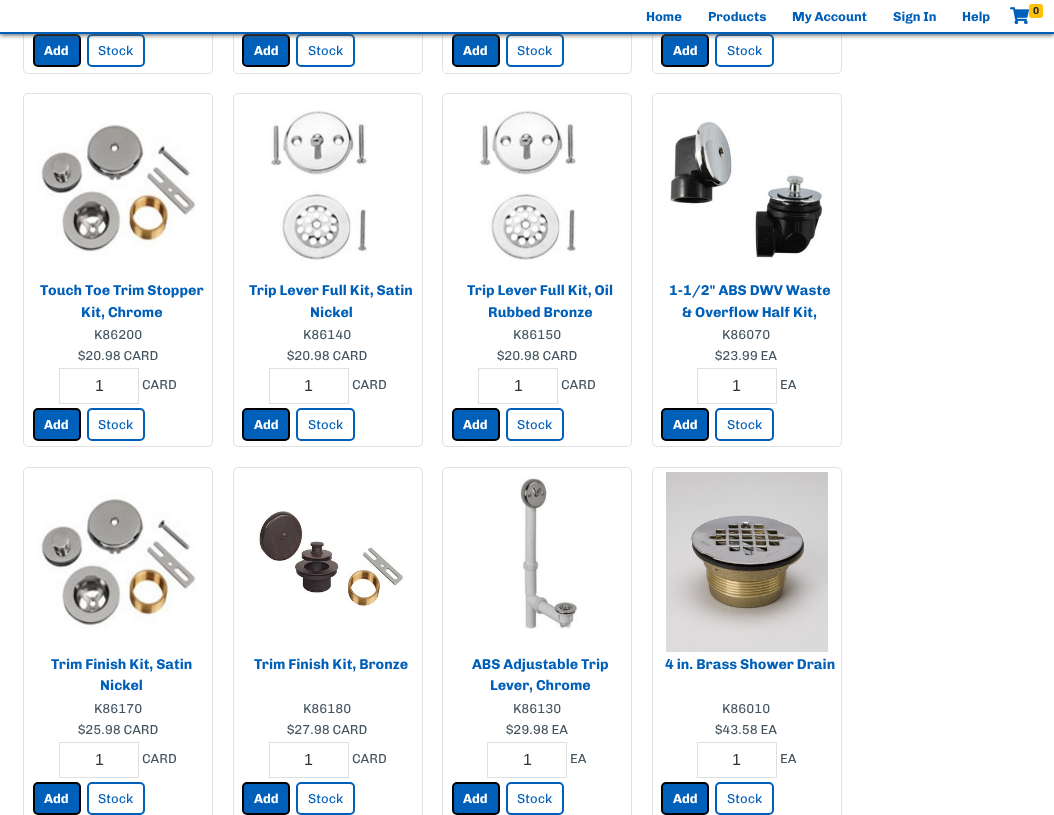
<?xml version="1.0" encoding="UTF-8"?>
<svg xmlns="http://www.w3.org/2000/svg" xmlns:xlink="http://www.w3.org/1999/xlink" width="1054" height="815">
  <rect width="100%" height="100%" fill="#ffffff" />
  <rect x="23.5" y="-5.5" width="189" height="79" rx="4.5" fill="none" stroke="#e1e1e1" />
  <rect x="34" y="35" width="46" height="31" rx="4" fill="#005fb8" stroke="#000000" stroke-width="2" />
  <rect x="88" y="35" width="56" height="31" rx="4" fill="none" stroke="#005fb8" stroke-width="2" />
  <rect x="233.5" y="-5.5" width="189" height="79" rx="4.5" fill="none" stroke="#e1e1e1" />
  <rect x="243" y="35" width="46" height="31" rx="4" fill="#005fb8" stroke="#000000" stroke-width="2" />
  <rect x="297" y="35" width="57" height="31" rx="4" fill="none" stroke="#005fb8" stroke-width="2" />
  <rect x="442.5" y="-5.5" width="189" height="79" rx="4.5" fill="none" stroke="#e1e1e1" />
  <rect x="453" y="35" width="46" height="31" rx="4" fill="#005fb8" stroke="#000000" stroke-width="2" />
  <rect x="507" y="35" width="56" height="31" rx="4" fill="none" stroke="#005fb8" stroke-width="2" />
  <rect x="652.5" y="-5.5" width="189" height="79" rx="4.5" fill="none" stroke="#e1e1e1" />
  <rect x="662" y="35" width="46" height="31" rx="4" fill="#005fb8" stroke="#000000" stroke-width="2" />
  <rect x="716" y="35" width="57" height="31" rx="4" fill="none" stroke="#005fb8" stroke-width="2" />
  <rect y="1" width="1054" height="34" fill="#555555" filter="blur(2.5px)" />
  <rect width="1054" height="32" fill="#ffffff" />
  <rect y="32" width="1054" height="2" fill="#005fb8" />
  <image x="1010" y="7" width="19" height="18" xlink:href="image1.png" />
  <rect x="1029" y="4" width="14" height="14" rx="3" fill="#ffc107" />
  <rect x="23.5" y="93.5" width="189" height="353" rx="4.5" fill="none" stroke="#e1e1e1" />
  <image x="37" y="119" width="159" height="136" xlink:href="image2.png" />
  <rect x="59.5" y="368.5" width="79" height="35" fill="none" stroke="#e0dfdf" />
  <rect x="34" y="409" width="46" height="31" rx="4" fill="#005fb8" stroke="#000000" stroke-width="2" />
  <rect x="88" y="409" width="56" height="31" rx="4" fill="none" stroke="#005fb8" stroke-width="2" />
  <rect x="233.5" y="93.5" width="189" height="353" rx="4.5" fill="none" stroke="#e1e1e1" />
  <image x="270" y="110" width="97" height="151" xlink:href="image3.png" />
  <rect x="269.5" y="368.5" width="79" height="35" fill="none" stroke="#e0dfdf" />
  <rect x="243" y="409" width="46" height="31" rx="4" fill="#005fb8" stroke="#000000" stroke-width="2" />
  <rect x="297" y="409" width="57" height="31" rx="4" fill="none" stroke="#005fb8" stroke-width="2" />
  <rect x="442.5" y="93.5" width="189" height="353" rx="4.5" fill="none" stroke="#e1e1e1" />
  <image x="479" y="110" width="97" height="151" xlink:href="image3.png" />
  <rect x="478.5" y="368.5" width="79" height="35" fill="none" stroke="#e0dfdf" />
  <rect x="453" y="409" width="46" height="31" rx="4" fill="#005fb8" stroke="#000000" stroke-width="2" />
  <rect x="507" y="409" width="56" height="31" rx="4" fill="none" stroke="#005fb8" stroke-width="2" />
  <rect x="652.5" y="93.5" width="189" height="353" rx="4.5" fill="none" stroke="#e1e1e1" />
  <image x="670" y="121" width="154" height="139" xlink:href="image4.png" />
  <rect x="697.5" y="368.5" width="79" height="35" fill="none" stroke="#e0dfdf" />
  <rect x="662" y="409" width="46" height="31" rx="4" fill="#005fb8" stroke="#000000" stroke-width="2" />
  <rect x="716" y="409" width="57" height="31" rx="4" fill="none" stroke="#005fb8" stroke-width="2" />
  <rect x="23.5" y="467.5" width="189" height="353" rx="4.5" fill="none" stroke="#e1e1e1" />
  <image x="37" y="493" width="159" height="136" xlink:href="image2.png" />
  <rect x="59.5" y="742.5" width="79" height="35" fill="none" stroke="#e0dfdf" />
  <rect x="34" y="783" width="46" height="31" rx="4" fill="#005fb8" stroke="#000000" stroke-width="2" />
  <rect x="88" y="783" width="56" height="31" rx="4" fill="none" stroke="#005fb8" stroke-width="2" />
  <rect x="233.5" y="467.5" width="189" height="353" rx="4.5" fill="none" stroke="#e1e1e1" />
  <image x="259" y="510" width="146" height="97" xlink:href="image5.png" />
  <rect x="269.5" y="742.5" width="79" height="35" fill="none" stroke="#e0dfdf" />
  <rect x="243" y="783" width="46" height="31" rx="4" fill="#005fb8" stroke="#000000" stroke-width="2" />
  <rect x="297" y="783" width="57" height="31" rx="4" fill="none" stroke="#005fb8" stroke-width="2" />
  <rect x="442.5" y="467.5" width="189" height="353" rx="4.5" fill="none" stroke="#e1e1e1" />
  <image x="520" y="477" width="58" height="152" xlink:href="image6.png" />
  <rect x="487.5" y="742.5" width="79" height="35" fill="none" stroke="#e0dfdf" />
  <rect x="453" y="783" width="46" height="31" rx="4" fill="#005fb8" stroke="#000000" stroke-width="2" />
  <rect x="507" y="783" width="56" height="31" rx="4" fill="none" stroke="#005fb8" stroke-width="2" />
  <rect x="652.5" y="467.5" width="189" height="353" rx="4.5" fill="none" stroke="#e1e1e1" />
  <image x="666" y="472" width="162" height="180" xlink:href="image7.png" />
  <rect x="697.5" y="742.5" width="79" height="35" fill="none" stroke="#e0dfdf" />
  <rect x="662" y="783" width="46" height="31" rx="4" fill="#005fb8" stroke="#000000" stroke-width="2" />
  <rect x="716" y="783" width="57" height="31" rx="4" fill="none" stroke="#005fb8" stroke-width="2" />
  <text x="646" y="21" style="font-family: Chivo; font-size: 13px; font-weight: bold; fill: #005fb8">Home</text>
  <text x="708" y="21" style="font-family: Chivo; font-size: 13px; font-weight: bold; fill: #005fb8">Products</text>
  <text x="792" y="21" style="font-family: Chivo; font-size: 13px; font-weight: bold; fill: #005fb8">My Account</text>
  <text x="893" y="21" style="font-family: Chivo; font-size: 13px; font-weight: bold; fill: #005fb8">Sign In</text>
  <text x="962" y="21" style="font-family: Chivo; font-size: 13px; font-weight: bold; fill: #005fb8">Help</text>
  <text x="1033" y="14" style="font-family: Chivo; font-size: 10px; font-weight: bold; fill: #212529">0</text>
  <text x="44" y="55" style="font-family: Chivo; font-size: 13px; font-weight: bold; fill: #ffffff">Add</text>
  <text x="98" y="55" style="font-family: Chivo; font-size: 13px; fill: #005fb8">Stock</text>
  <text x="254" y="55" style="font-family: Chivo; font-size: 13px; font-weight: bold; fill: #ffffff">Add</text>
  <text x="308" y="55" style="font-family: Chivo; font-size: 13px; fill: #005fb8">Stock</text>
  <text x="463" y="55" style="font-family: Chivo; font-size: 13px; font-weight: bold; fill: #ffffff">Add</text>
  <text x="517" y="55" style="font-family: Chivo; font-size: 13px; fill: #005fb8">Stock</text>
  <text x="673" y="55" style="font-family: Chivo; font-size: 13px; font-weight: bold; fill: #ffffff">Add</text>
  <text x="727" y="55" style="font-family: Chivo; font-size: 13px; fill: #005fb8">Stock</text>
  <text x="40" y="295" style="font-family: Chivo; font-size: 14.25px; font-weight: bold; fill: #005fb8">Touch Toe Trim Stopper</text>
  <text x="81" y="317" style="font-family: Chivo; font-size: 14.25px; font-weight: bold; fill: #005fb8">Kit, Chrome</text>
  <text x="94" y="339" style="font-family: Chivo; font-size: 13px; fill: #455560">K86200</text>
  <text x="78" y="360" style="font-family: Chivo; font-size: 13px; fill: #455560">$20.98 CARD</text>
  <text x="95" y="391" style="font-family: Liberation Sans; font-size: 16px; fill: #333333">1</text>
  <text x="142" y="389" style="font-family: Chivo; font-size: 13px; fill: #455560">CARD</text>
  <text x="44" y="429" style="font-family: Chivo; font-size: 13px; font-weight: bold; fill: #ffffff">Add</text>
  <text x="98" y="429" style="font-family: Chivo; font-size: 13px; fill: #005fb8">Stock</text>
  <text x="249" y="295" style="font-family: Chivo; font-size: 14.25px; font-weight: bold; fill: #005fb8">Trip Lever Full Kit, Satin</text>
  <text x="310" y="317" style="font-family: Chivo; font-size: 14.25px; font-weight: bold; fill: #005fb8">Nickel</text>
  <text x="303" y="339" style="font-family: Chivo; font-size: 13px; fill: #455560">K86140</text>
  <text x="287" y="360" style="font-family: Chivo; font-size: 13px; fill: #455560">$20.98 CARD</text>
  <text x="304" y="391" style="font-family: Liberation Sans; font-size: 16px; fill: #333333">1</text>
  <text x="352" y="389" style="font-family: Chivo; font-size: 13px; fill: #455560">CARD</text>
  <text x="254" y="429" style="font-family: Chivo; font-size: 13px; font-weight: bold; fill: #ffffff">Add</text>
  <text x="308" y="429" style="font-family: Chivo; font-size: 13px; fill: #005fb8">Stock</text>
  <text x="467" y="295" style="font-family: Chivo; font-size: 14.25px; font-weight: bold; fill: #005fb8">Trip Lever Full Kit, Oil</text>
  <text x="488" y="317" style="font-family: Chivo; font-size: 14.25px; font-weight: bold; fill: #005fb8">Rubbed Bronze</text>
  <text x="513" y="339" style="font-family: Chivo; font-size: 13px; fill: #455560">K86150</text>
  <text x="497" y="360" style="font-family: Chivo; font-size: 13px; fill: #455560">$20.98 CARD</text>
  <text x="514" y="391" style="font-family: Liberation Sans; font-size: 16px; fill: #333333">1</text>
  <text x="561" y="389" style="font-family: Chivo; font-size: 13px; fill: #455560">CARD</text>
  <text x="463" y="429" style="font-family: Chivo; font-size: 13px; font-weight: bold; fill: #ffffff">Add</text>
  <text x="517" y="429" style="font-family: Chivo; font-size: 13px; fill: #005fb8">Stock</text>
  <text x="669" y="295" style="font-family: Chivo; font-size: 14.25px; font-weight: bold; fill: #005fb8">1-1/2" ABS DWV Waste</text>
  <text x="682" y="317" style="font-family: Chivo; font-size: 14.25px; font-weight: bold; fill: #005fb8">&amp; Overflow Half Kit,</text>
  <text x="722" y="339" style="font-family: Chivo; font-size: 13px; fill: #455560">K86070</text>
  <text x="715" y="360" style="font-family: Chivo; font-size: 13px; fill: #455560">$23.99 EA</text>
  <text x="732" y="391" style="font-family: Liberation Sans; font-size: 16px; fill: #333333">1</text>
  <text x="780" y="389" style="font-family: Chivo; font-size: 13px; fill: #455560">EA</text>
  <text x="673" y="429" style="font-family: Chivo; font-size: 13px; font-weight: bold; fill: #ffffff">Add</text>
  <text x="727" y="429" style="font-family: Chivo; font-size: 13px; fill: #005fb8">Stock</text>
  <text x="51" y="669" style="font-family: Chivo; font-size: 14.25px; font-weight: bold; fill: #005fb8">Trim Finish Kit, Satin</text>
  <text x="100" y="690" style="font-family: Chivo; font-size: 14.25px; font-weight: bold; fill: #005fb8">Nickel</text>
  <text x="94" y="713" style="font-family: Chivo; font-size: 13px; fill: #455560">K86170</text>
  <text x="78" y="734" style="font-family: Chivo; font-size: 13px; fill: #455560">$25.98 CARD</text>
  <text x="95" y="765" style="font-family: Liberation Sans; font-size: 16px; fill: #333333">1</text>
  <text x="142" y="763" style="font-family: Chivo; font-size: 13px; fill: #455560">CARD</text>
  <text x="44" y="803" style="font-family: Chivo; font-size: 13px; font-weight: bold; fill: #ffffff">Add</text>
  <text x="98" y="803" style="font-family: Chivo; font-size: 13px; fill: #005fb8">Stock</text>
  <text x="254" y="669" style="font-family: Chivo; font-size: 14.25px; font-weight: bold; fill: #005fb8">Trim Finish Kit, Bronze</text>
  <text x="303" y="713" style="font-family: Chivo; font-size: 13px; fill: #455560">K86180</text>
  <text x="287" y="734" style="font-family: Chivo; font-size: 13px; fill: #455560">$27.98 CARD</text>
  <text x="304" y="765" style="font-family: Liberation Sans; font-size: 16px; fill: #333333">1</text>
  <text x="352" y="763" style="font-family: Chivo; font-size: 13px; fill: #455560">CARD</text>
  <text x="254" y="803" style="font-family: Chivo; font-size: 13px; font-weight: bold; fill: #ffffff">Add</text>
  <text x="308" y="803" style="font-family: Chivo; font-size: 13px; fill: #005fb8">Stock</text>
  <text x="472" y="669" style="font-family: Chivo; font-size: 14.25px; font-weight: bold; fill: #005fb8">ABS Adjustable Trip</text>
  <text x="490" y="690" style="font-family: Chivo; font-size: 14.25px; font-weight: bold; fill: #005fb8">Lever, Chrome</text>
  <text x="513" y="713" style="font-family: Chivo; font-size: 13px; fill: #455560">K86130</text>
  <text x="506" y="734" style="font-family: Chivo; font-size: 13px; fill: #455560">$29.98 EA</text>
  <text x="523" y="765" style="font-family: Liberation Sans; font-size: 16px; fill: #333333">1</text>
  <text x="570" y="763" style="font-family: Chivo; font-size: 13px; fill: #455560">EA</text>
  <text x="463" y="803" style="font-family: Chivo; font-size: 13px; font-weight: bold; fill: #ffffff">Add</text>
  <text x="517" y="803" style="font-family: Chivo; font-size: 13px; fill: #005fb8">Stock</text>
  <text x="665" y="669" style="font-family: Chivo; font-size: 14.25px; font-weight: bold; fill: #005fb8">4 in. Brass Shower Drain</text>
  <text x="722" y="713" style="font-family: Chivo; font-size: 13px; fill: #455560">K86010</text>
  <text x="715" y="734" style="font-family: Chivo; font-size: 13px; fill: #455560">$43.58 EA</text>
  <text x="732" y="765" style="font-family: Liberation Sans; font-size: 16px; fill: #333333">1</text>
  <text x="780" y="763" style="font-family: Chivo; font-size: 13px; fill: #455560">EA</text>
  <text x="673" y="803" style="font-family: Chivo; font-size: 13px; font-weight: bold; fill: #ffffff">Add</text>
  <text x="727" y="803" style="font-family: Chivo; font-size: 13px; fill: #005fb8">Stock</text>
</svg>
